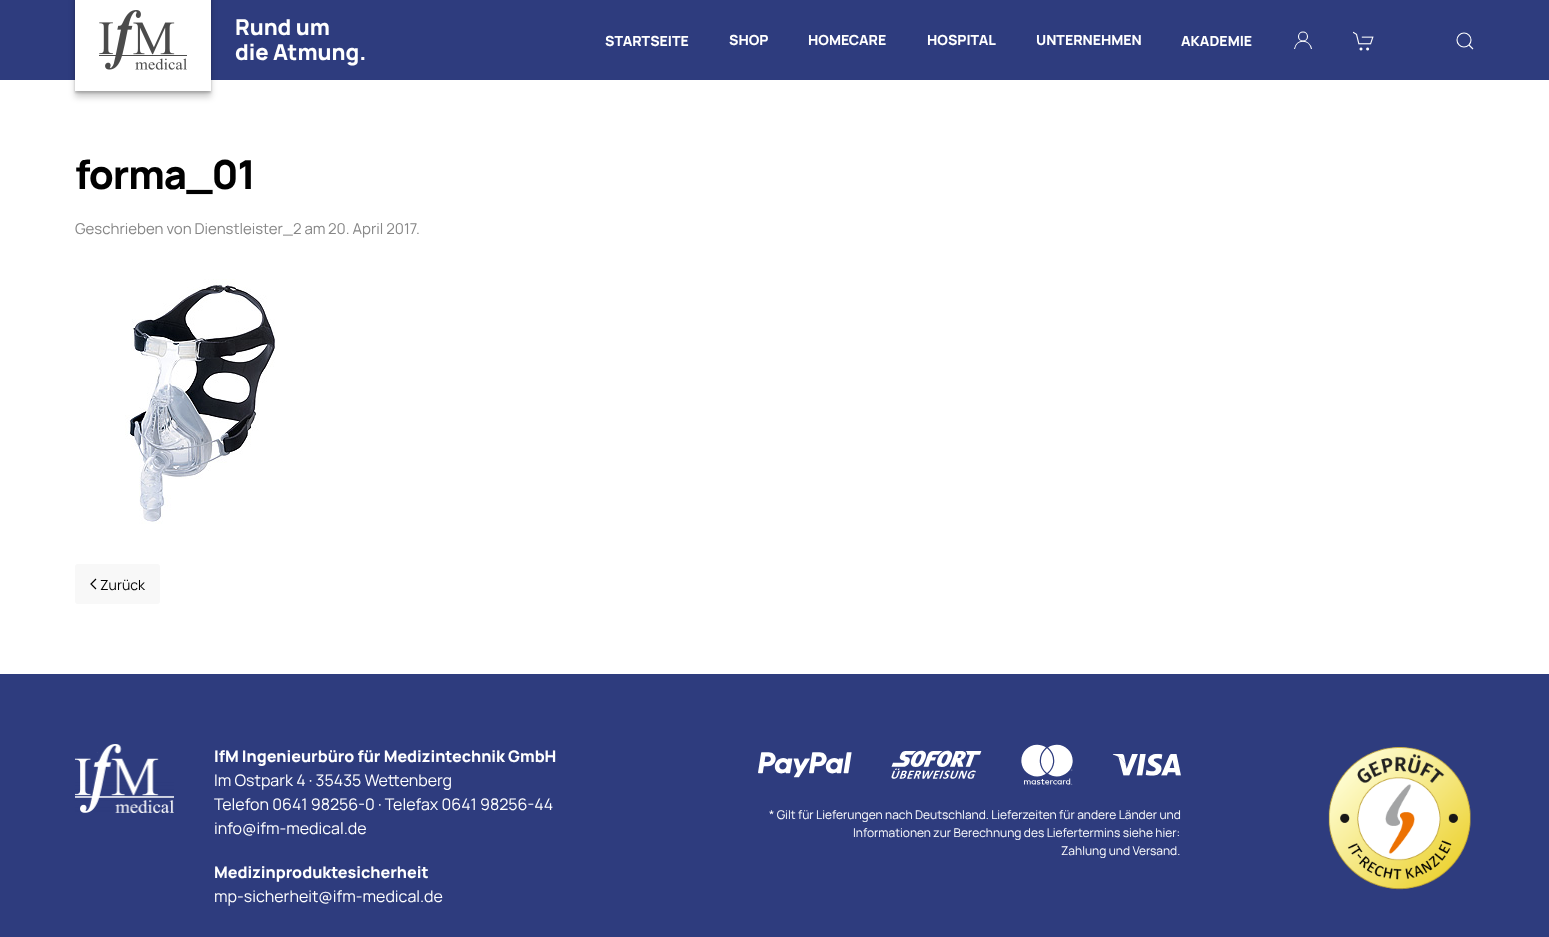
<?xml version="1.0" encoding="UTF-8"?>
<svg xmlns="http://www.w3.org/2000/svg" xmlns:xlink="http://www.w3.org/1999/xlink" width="1549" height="937">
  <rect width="100%" height="100%" fill="#ffffff" />
  <rect width="1549" height="80" fill="#2e3c7e" />
  <rect x="75" y="-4" width="136" height="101" fill="#000000" fill-opacity="0.2" filter="blur(3px)" />
  <rect x="75" y="-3" width="136" height="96" fill="#000000" fill-opacity="0.2" filter="blur(1px)" />
  <rect x="75" width="136" height="91" fill="#ffffff" />
  <image x="99" y="10" width="88" height="60" xlink:href="image1.png" />
  <circle cx="1303" cy="36.5" r="4.5" fill="none" stroke="#ffffff" stroke-width="1.1" />
  <path d="M 1294.5 49 c 2 -10.5 15 -10 17 0" fill="none" stroke="#ffffff" stroke-width="1.1" />
  <image x="1353" y="31" width="21" height="20" xlink:href="image2.png" />
  <circle cx="1464" cy="40" r="7" fill="none" stroke="#ffffff" stroke-width="1.1" />
  <path d="M 1469 45 l 4 4 z" fill="none" stroke="#ffffff" stroke-width="1.1" />
  <image x="125" y="279" width="150" height="245" xlink:href="image3.png" />
  <rect x="75" y="564" width="85" height="40" rx="3" fill="#f8f8f8" />
  <path d="M 96 579 l -5 5 l 5 5" fill="none" stroke="#000000" stroke-width="1.2" />
  <rect y="674" width="1549" height="263" fill="#2e3c7e" />
  <image x="75" y="744" width="99" height="69" xlink:href="image4.png" />
  <image x="758" y="744" width="423" height="41" xlink:href="image5.png" />
  <image x="1328" y="747" width="143" height="143" xlink:href="image6.png" />
  <text x="235" y="35" style="font-family: Manrope; font-size: 22px; font-weight: 200; fill: #ffffff">Rund um</text>
  <text x="235" y="60" style="font-family: Manrope; font-size: 22px; font-weight: 200; fill: #ffffff">die Atmung.</text>
  <text x="605" y="46" style="font-family: Manrope; font-size: 14px; font-weight: 200; fill: #ffffff">STARTSEITE</text>
  <text x="729" y="45" style="font-family: Manrope; font-size: 14px; font-weight: 200; fill: #ffffff">SHOP</text>
  <text x="808" y="45" style="font-family: Manrope; font-size: 14px; font-weight: 200; fill: #ffffff">HOMECARE</text>
  <text x="927" y="45" style="font-family: Manrope; font-size: 14px; font-weight: 200; fill: #ffffff">HOSPITAL</text>
  <text x="1036" y="45" style="font-family: Manrope; font-size: 14px; font-weight: 200; fill: #ffffff">UNTERNEHMEN</text>
  <text x="1181" y="46" style="font-family: Manrope; font-size: 14px; font-weight: 200; fill: #ffffff">AKADEMIE</text>
  <text x="75" y="189" style="font-family: Manrope; font-size: 40px; font-weight: 200; letter-spacing: -1px; fill: #000000">forma_01</text>
  <text x="75" y="234" style="font-family: 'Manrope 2'; font-size: 15px; font-weight: 200; fill: #868686">Geschrieben von Dienstleister_2 am</text>
  <text x="328" y="234" style="font-family: 'Manrope 2'; font-size: 15px; font-weight: 200; fill: #868686">20. April 2017</text>
  <text x="416" y="234" style="font-family: 'Manrope 2'; font-size: 15px; font-weight: 200; fill: #868686">.</text>
  <text x="100" y="590" style="font-family: 'Manrope 2'; font-size: 14px; font-weight: 200; fill: #000000">Zurück</text>
  <text x="214" y="762" style="font-family: Manrope; font-size: 16px; font-weight: 200; fill: #ffffff">IfM Ingenieurbüro für Medizintechnik GmbH</text>
  <text x="214" y="786" style="font-family: 'Manrope 2'; font-size: 16px; font-weight: 200; fill: #ffffff">Im Ostpark 4 · 35435 Wettenberg</text>
  <text x="214" y="810" style="font-family: 'Manrope 2'; font-size: 16px; font-weight: 200; fill: #ffffff">Telefon 0641 98256-0 · Telefax 0641 98256-44</text>
  <text x="214" y="834" style="font-family: 'Manrope 2'; font-size: 16px; font-weight: 200; fill: #ffffff">info@ifm-medical.de</text>
  <text x="214" y="878" style="font-family: Manrope; font-size: 16px; font-weight: 200; fill: #ffffff">Medizinproduktesicherheit</text>
  <text x="214" y="902" style="font-family: 'Manrope 2'; font-size: 16px; font-weight: 200; fill: #ffffff">mp-sicherheit@ifm-medical.de</text>
  <text x="769" y="819" style="font-family: 'Manrope 2'; font-size: 12px; font-weight: 200; fill: #ffffff">* Gilt für Lieferungen nach Deutschland. Lieferzeiten für andere Länder und</text>
  <text x="853" y="837" style="font-family: 'Manrope 2'; font-size: 12px; font-weight: 200; fill: #ffffff">Informationen zur Berechnung des Liefertermins siehe hier:</text>
  <text x="1061" y="855" style="font-family: 'Manrope 2'; font-size: 12px; font-weight: 200; fill: #ffffff">Zahlung und Versand.</text>
</svg>
